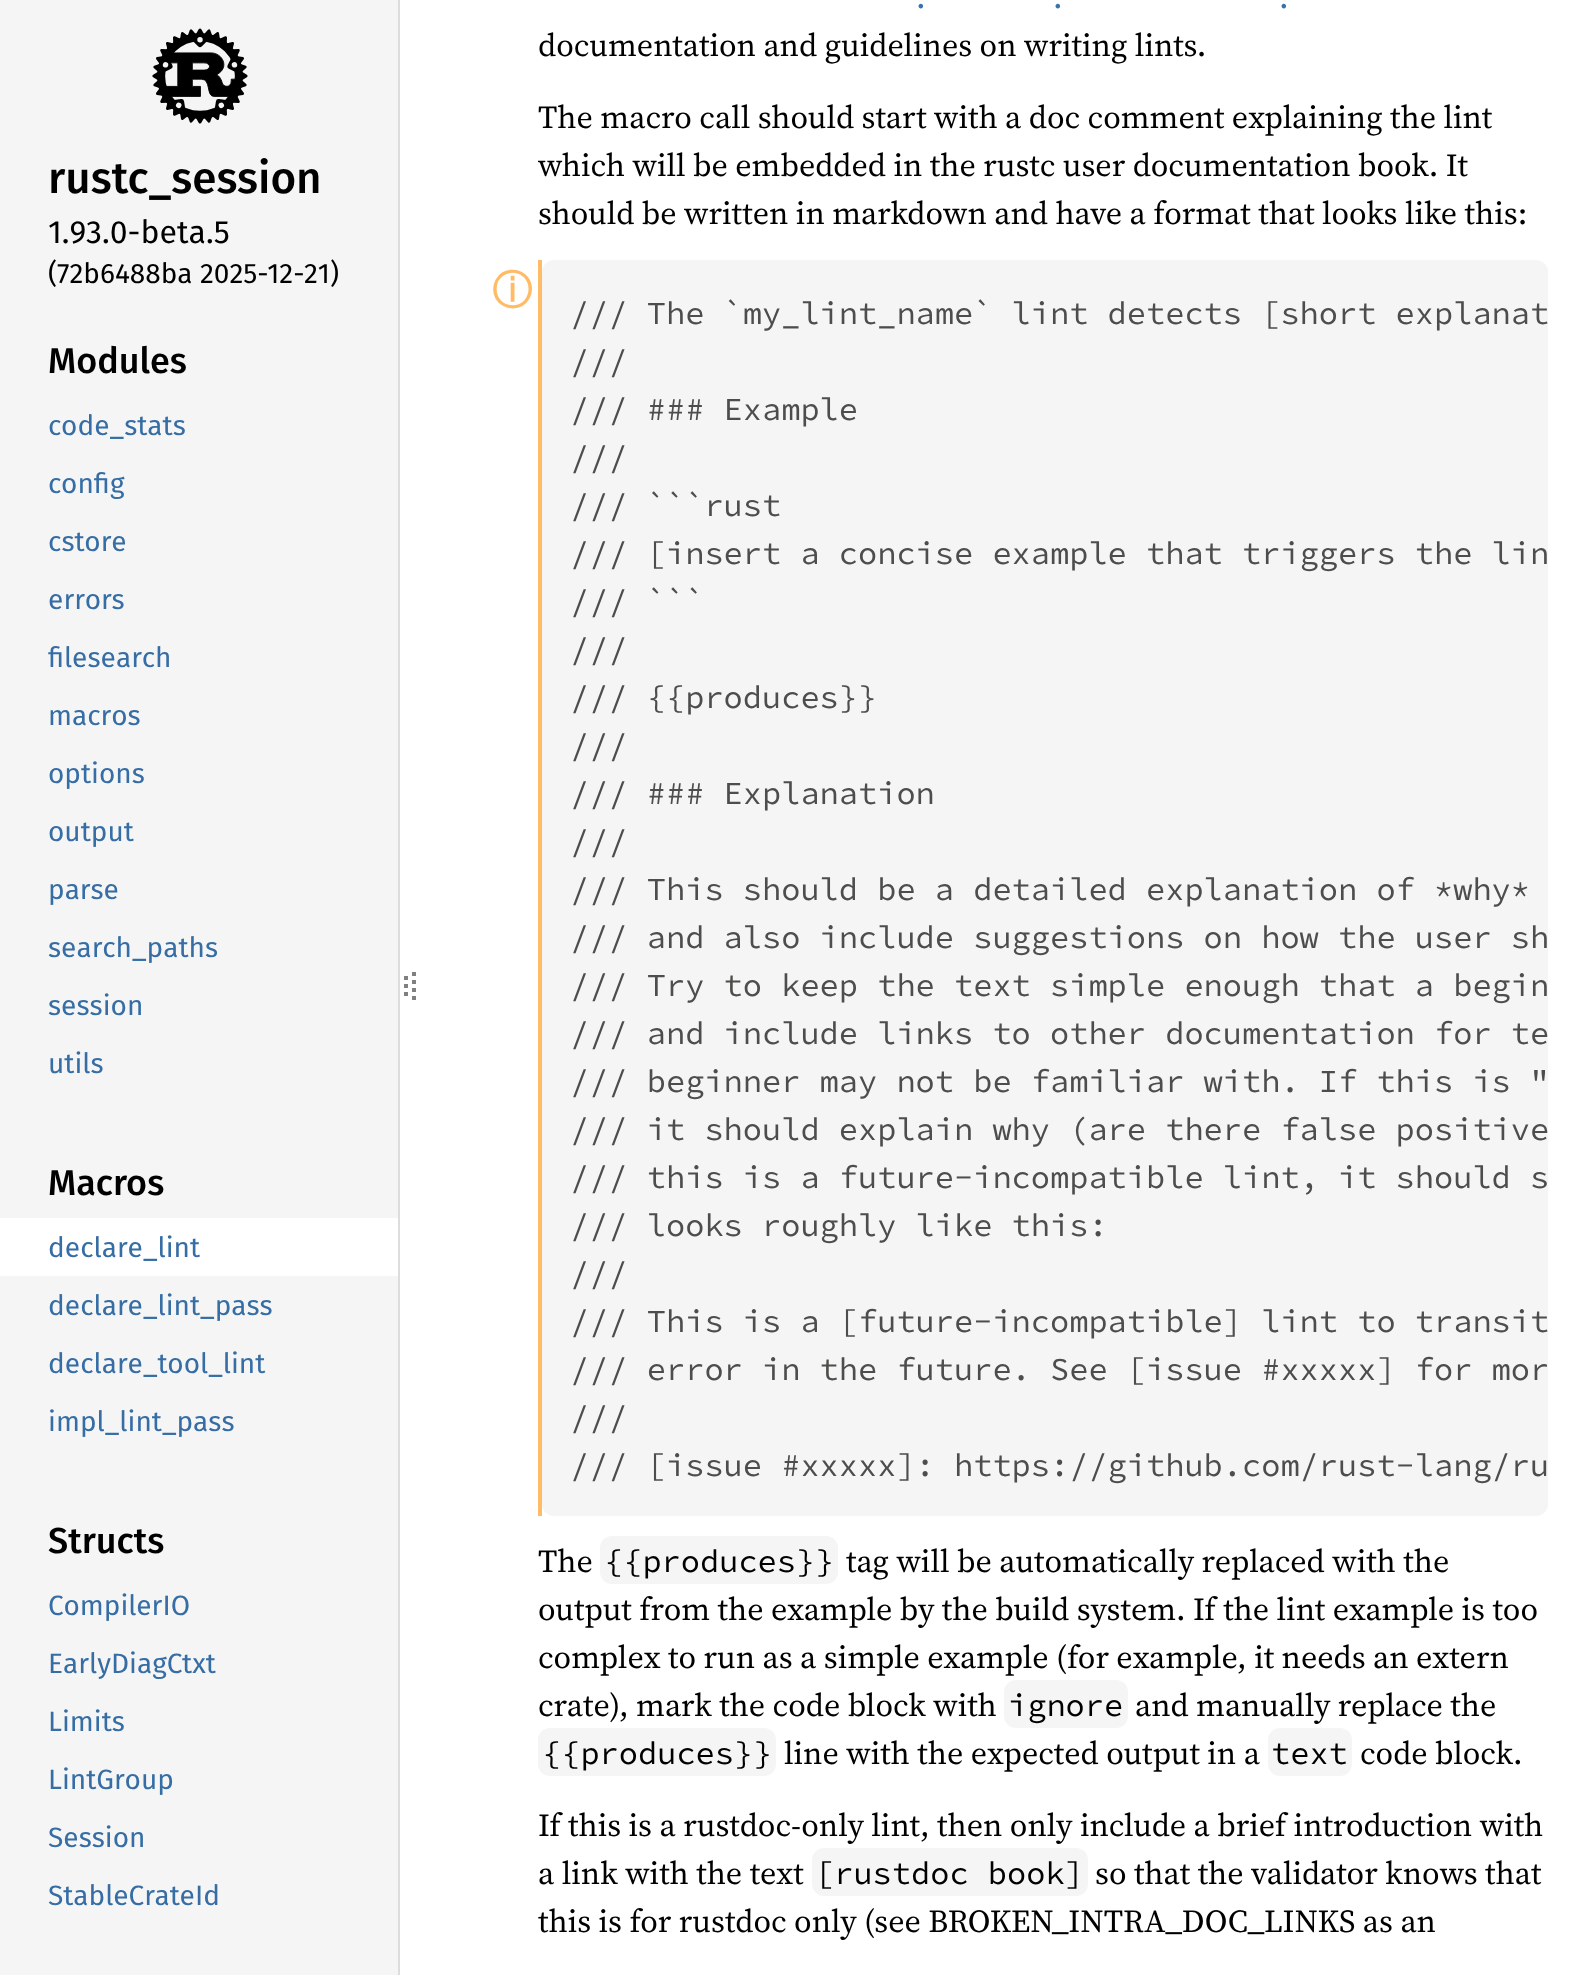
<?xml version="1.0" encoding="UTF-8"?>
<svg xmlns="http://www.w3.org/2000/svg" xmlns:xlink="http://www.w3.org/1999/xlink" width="1578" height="1975">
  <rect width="100%" height="100%" fill="#ffffff" />
  <rect width="398" height="1975" fill="#f5f5f5" />
  <rect x="398" width="2" height="1975" fill="#dddddd" />
  <image x="152" y="28" width="96" height="96" xlink:href="image1.png" />
  <rect y="1218" width="398" height="58" fill="#ffffff" />
  <path d="M 406 976 v 4 m 0 4 v 4 m 0 4 v 4" fill="none" stroke="#808080" stroke-width="4" />
  <path d="M 414 972 v 32" fill="none" stroke="#808080" stroke-width="4" stroke-dasharray="4 4" />
  <rect x="538" y="260" width="4" height="1256" fill="#ffbb66" />
  <rect x="542" y="260" width="1006" height="1256" rx="12" fill="#f5f5f5" />
  <rect x="600" y="1536" width="238" height="48" rx="12" fill="#f5f5f5" />
  <rect x="1004" y="1680" width="124" height="48" rx="12" fill="#f5f5f5" />
  <rect x="538" y="1728" width="238" height="48" rx="12" fill="#f5f5f5" />
  <rect x="1268" y="1728" width="84" height="48" rx="12" fill="#f5f5f5" />
  <rect x="812" y="1848" width="276" height="48" rx="12" fill="#f5f5f5" />
  <text x="48" y="193" style="font-family: Fira Sans; font-size: 44px; font-weight: 500; fill: #000000">rustc_session</text>
  <text x="48" y="243" style="font-family: Fira Sans; font-size: 32px; fill: #000000">1.93.0-beta.5</text>
  <text x="48" y="283" style="font-family: Fira Sans; font-size: 28px; fill: #000000">(72b6488ba 2025-12-21)</text>
  <text x="48" y="373" style="font-family: Fira Sans; font-size: 36px; font-weight: 500; fill: #000000">Modules</text>
  <text x="48" y="435" style="font-family: Fira Sans; font-size: 28px; fill: #356da4">code_stats</text>
  <text x="48" y="493" style="font-family: Fira Sans; font-size: 28px; fill: #356da4">config</text>
  <text x="48" y="551" style="font-family: Fira Sans; font-size: 28px; fill: #356da4">cstore</text>
  <text x="48" y="609" style="font-family: Fira Sans; font-size: 28px; fill: #356da4">errors</text>
  <text x="48" y="667" style="font-family: Fira Sans; font-size: 28px; fill: #356da4">filesearch</text>
  <text x="48" y="725" style="font-family: Fira Sans; font-size: 28px; fill: #356da4">macros</text>
  <text x="48" y="783" style="font-family: Fira Sans; font-size: 28px; fill: #356da4">options</text>
  <text x="48" y="841" style="font-family: Fira Sans; font-size: 28px; fill: #356da4">output</text>
  <text x="48" y="899" style="font-family: Fira Sans; font-size: 28px; fill: #356da4">parse</text>
  <text x="48" y="957" style="font-family: Fira Sans; font-size: 28px; fill: #356da4">search_paths</text>
  <text x="48" y="1015" style="font-family: Fira Sans; font-size: 28px; fill: #356da4">session</text>
  <text x="48" y="1073" style="font-family: Fira Sans; font-size: 28px; fill: #356da4">utils</text>
  <text x="48" y="1195" style="font-family: Fira Sans; font-size: 36px; font-weight: 500; fill: #000000">Macros</text>
  <text x="48" y="1257" style="font-family: Fira Sans; font-size: 28px; fill: #356da4">declare_lint</text>
  <text x="48" y="1315" style="font-family: Fira Sans; font-size: 28px; fill: #356da4">declare_lint_pass</text>
  <text x="48" y="1373" style="font-family: Fira Sans; font-size: 28px; fill: #356da4">declare_tool_lint</text>
  <text x="48" y="1431" style="font-family: Fira Sans; font-size: 28px; fill: #356da4">impl_lint_pass</text>
  <text x="48" y="1553" style="font-family: Fira Sans; font-size: 36px; font-weight: 500; fill: #000000">Structs</text>
  <text x="48" y="1615" style="font-family: Fira Sans; font-size: 28px; fill: #356da4">CompilerIO</text>
  <text x="48" y="1673" style="font-family: Fira Sans; font-size: 28px; fill: #356da4">EarlyDiagCtxt</text>
  <text x="48" y="1731" style="font-family: Fira Sans; font-size: 28px; fill: #356da4">Limits</text>
  <text x="48" y="1789" style="font-family: Fira Sans; font-size: 28px; fill: #356da4">LintGroup</text>
  <text x="48" y="1847" style="font-family: Fira Sans; font-size: 28px; fill: #356da4">Session</text>
  <text x="48" y="1905" style="font-family: Fira Sans; font-size: 28px; fill: #356da4">StableCrateId</text>
  <text x="916" y="8" style="font-family: 'Source Serif 4'; font-size: 32px; fill: #3873ad">.</text>
  <text x="1053" y="8" style="font-family: 'Source Serif 4'; font-size: 32px; fill: #3873ad">.</text>
  <text x="1279" y="8" style="font-family: 'Source Serif 4'; font-size: 32px; fill: #3873ad">.</text>
  <text x="538" y="56" style="font-family: 'Source Serif 4'; font-size: 32px; fill: #000000">documentation and guidelines on writing lints.</text>
  <text x="538" y="128" style="font-family: 'Source Serif 4'; font-size: 32px; fill: #000000">The macro call should start with a doc comment explaining the lint</text>
  <text x="538" y="176" style="font-family: 'Source Serif 4'; font-size: 32px; fill: #000000">which will be embedded in the rustc user documentation book. It</text>
  <text x="538" y="224" style="font-family: 'Source Serif 4'; font-size: 32px; fill: #000000">should be written in markdown and have a format that looks like this:</text>
  <text x="492" y="304" style="font-family: WenQuanYi Zen Hei; font-size: 40px; font-weight: bold; fill: #ffbb66">ⓘ</text>
  <text x="570" y="324" style="font-family: Source Code Pro; font-size: 32px; fill: #4d4d4c">/// The `my_lint_name` lint detects [short explanat</text>
  <text x="570" y="372" style="font-family: Source Code Pro; font-size: 32px; fill: #4d4d4c">///</text>
  <text x="570" y="420" style="font-family: Source Code Pro; font-size: 32px; fill: #4d4d4c">/// ### Example</text>
  <text x="570" y="468" style="font-family: Source Code Pro; font-size: 32px; fill: #4d4d4c">///</text>
  <text x="570" y="516" style="font-family: Source Code Pro; font-size: 32px; fill: #4d4d4c">/// ```rust</text>
  <text x="570" y="564" style="font-family: Source Code Pro; font-size: 32px; fill: #4d4d4c">/// [insert a concise example that triggers the lin</text>
  <text x="570" y="612" style="font-family: Source Code Pro; font-size: 32px; fill: #4d4d4c">/// ```</text>
  <text x="570" y="660" style="font-family: Source Code Pro; font-size: 32px; fill: #4d4d4c">///</text>
  <text x="570" y="708" style="font-family: Source Code Pro; font-size: 32px; fill: #4d4d4c">/// {{produces}}</text>
  <text x="570" y="756" style="font-family: Source Code Pro; font-size: 32px; fill: #4d4d4c">///</text>
  <text x="570" y="804" style="font-family: Source Code Pro; font-size: 32px; fill: #4d4d4c">/// ### Explanation</text>
  <text x="570" y="852" style="font-family: Source Code Pro; font-size: 32px; fill: #4d4d4c">///</text>
  <text x="570" y="900" style="font-family: Source Code Pro; font-size: 32px; fill: #4d4d4c">/// This should be a detailed explanation of *why*</text>
  <text x="570" y="948" style="font-family: Source Code Pro; font-size: 32px; fill: #4d4d4c">/// and also include suggestions on how the user sh</text>
  <text x="570" y="996" style="font-family: Source Code Pro; font-size: 32px; fill: #4d4d4c">/// Try to keep the text simple enough that a begin</text>
  <text x="570" y="1044" style="font-family: Source Code Pro; font-size: 32px; fill: #4d4d4c">/// and include links to other documentation for te</text>
  <text x="570" y="1092" style="font-family: Source Code Pro; font-size: 32px; fill: #4d4d4c">/// beginner may not be familiar with. If this is "</text>
  <text x="570" y="1140" style="font-family: Source Code Pro; font-size: 32px; fill: #4d4d4c">/// it should explain why (are there false positive</text>
  <text x="570" y="1188" style="font-family: Source Code Pro; font-size: 32px; fill: #4d4d4c">/// this is a future-incompatible lint, it should s</text>
  <text x="570" y="1236" style="font-family: Source Code Pro; font-size: 32px; fill: #4d4d4c">/// looks roughly like this:</text>
  <text x="570" y="1284" style="font-family: Source Code Pro; font-size: 32px; fill: #4d4d4c">///</text>
  <text x="570" y="1332" style="font-family: Source Code Pro; font-size: 32px; fill: #4d4d4c">/// This is a [future-incompatible] lint to transit</text>
  <text x="570" y="1380" style="font-family: Source Code Pro; font-size: 32px; fill: #4d4d4c">/// error in the future. See [issue #xxxxx] for mor</text>
  <text x="570" y="1428" style="font-family: Source Code Pro; font-size: 32px; fill: #4d4d4c">///</text>
  <text x="570" y="1476" style="font-family: Source Code Pro; font-size: 32px; fill: #4d4d4c">/// [issue #xxxxx]: https://github.com/rust-lang/ru</text>
  <text x="538" y="1572" style="font-family: 'Source Serif 4'; font-size: 32px; fill: #000000">The</text>
  <text x="604" y="1572" style="font-family: Source Code Pro; font-size: 32px; fill: #000000">{{produces}}</text>
  <text x="846" y="1572" style="font-family: 'Source Serif 4'; font-size: 32px; fill: #000000">tag will be automatically replaced with the</text>
  <text x="538" y="1620" style="font-family: 'Source Serif 4'; font-size: 32px; fill: #000000">output from the example by the build system. If the lint example is too</text>
  <text x="538" y="1668" style="font-family: 'Source Serif 4'; font-size: 32px; fill: #000000">complex to run as a simple example (for example, it needs an extern</text>
  <text x="538" y="1716" style="font-family: 'Source Serif 4'; font-size: 32px; fill: #000000">crate), mark the code block with</text>
  <text x="1008" y="1716" style="font-family: Source Code Pro; font-size: 32px; fill: #000000">ignore</text>
  <text x="1135" y="1716" style="font-family: 'Source Serif 4'; font-size: 32px; fill: #000000">and manually replace the</text>
  <text x="542" y="1764" style="font-family: Source Code Pro; font-size: 32px; fill: #000000">{{produces}}</text>
  <text x="784" y="1764" style="font-family: 'Source Serif 4'; font-size: 32px; fill: #000000">line with the expected output in a</text>
  <text x="1271" y="1764" style="font-family: Source Code Pro; font-size: 32px; fill: #000000">text</text>
  <text x="1360" y="1764" style="font-family: 'Source Serif 4'; font-size: 32px; fill: #000000">code block.</text>
  <text x="538" y="1836" style="font-family: 'Source Serif 4'; font-size: 32px; fill: #000000">If this is a rustdoc-only lint, then only include a brief introduction with</text>
  <text x="538" y="1884" style="font-family: 'Source Serif 4'; font-size: 32px; fill: #000000">a link with the text</text>
  <text x="815" y="1884" style="font-family: Source Code Pro; font-size: 32px; fill: #000000">[rustdoc book]</text>
  <text x="1095" y="1884" style="font-family: 'Source Serif 4'; font-size: 32px; fill: #000000">so that the validator knows that</text>
  <text x="538" y="1932" style="font-family: 'Source Serif 4'; font-size: 32px; fill: #000000">this is for rustdoc only (see BROKEN_INTRA_DOC_LINKS as an</text>
</svg>
